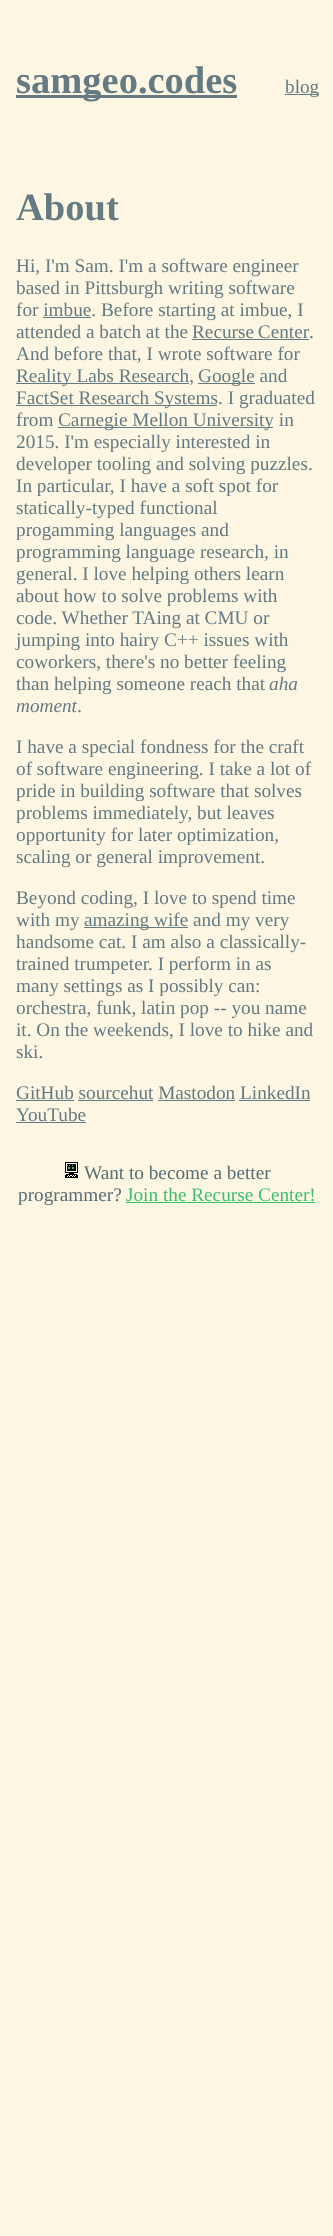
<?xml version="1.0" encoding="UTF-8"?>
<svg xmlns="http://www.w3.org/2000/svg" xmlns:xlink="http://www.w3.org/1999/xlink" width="333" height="2236">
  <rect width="100%" height="100%" fill="#fdf6e3" />
  <rect x="16" y="95" width="221" height="3" fill="#657b83" />
  <rect x="285" y="94" width="34" height="1" fill="#657b83" />
  <rect x="43" y="317" width="48" height="1" fill="#657b83" />
  <rect x="192" y="339" width="117" height="1" fill="#657b83" />
  <rect x="16" y="383" width="173" height="1" fill="#657b83" />
  <rect x="198" y="383" width="57" height="1" fill="#657b83" />
  <rect x="16" y="405" width="201" height="1" fill="#657b83" />
  <rect x="58" y="427" width="215" height="1" fill="#657b83" />
  <rect x="84" y="927" width="104" height="1" fill="#657b83" />
  <rect x="16" y="1100" width="58" height="1" fill="#657b83" />
  <rect x="78" y="1100" width="75" height="1" fill="#657b83" />
  <rect x="158" y="1100" width="77" height="1" fill="#657b83" />
  <rect x="239" y="1100" width="71" height="1" fill="#657b83" />
  <rect x="16" y="1122" width="70" height="1" fill="#657b83" />
  <image x="65" y="1162" width="13" height="16" xlink:href="image1.png" />
  <rect x="126" y="1202" width="189" height="1" fill="#3dc06c" />
  <text x="16" y="93" style="font-family: Liberation Serif; font-size: 38.5px; font-weight: bold; fill: #657b83">samgeo.codes</text>
  <text x="285" y="93" style="font-family: Liberation Serif; font-size: 19.25px; fill: #657b83">blog</text>
  <text x="16" y="220" style="font-family: Liberation Serif; font-size: 38.5px; font-weight: bold; fill: #657b83">About</text>
  <text x="16" y="272" style="font-family: Liberation Serif; font-size: 19.25px; fill: #657b83">Hi, I'm Sam. I'm a software engineer</text>
  <text x="16" y="294" style="font-family: Liberation Serif; font-size: 19.25px; fill: #657b83">based in Pittsburgh writing software</text>
  <text x="16" y="316" style="font-family: Liberation Serif; font-size: 19.25px; fill: #657b83">for imbue. Before starting at imbue, I</text>
  <text x="16" y="338" style="font-family: Liberation Serif; font-size: 19.25px; fill: #657b83">attended a batch at the</text>
  <text x="192" y="338" word-spacing="-1" style="font-family: Liberation Serif; font-size: 19.25px; fill: #657b83">Recurse Center</text>
  <text x="309" y="338" style="font-family: Liberation Serif; font-size: 19.25px; fill: #657b83">.</text>
  <text x="16" y="360" style="font-family: Liberation Serif; font-size: 19.25px; fill: #657b83">And before that, I wrote software for</text>
  <text x="16" y="382" style="font-family: Liberation Serif; font-size: 19.25px; fill: #657b83">Reality Labs Research,</text>
  <text x="198" y="382" style="font-family: Liberation Serif; font-size: 19.25px; fill: #657b83">Google and</text>
  <text x="16" y="404" style="font-family: Liberation Serif; font-size: 19.25px; fill: #657b83">FactSet Research Systems. I graduated</text>
  <text x="16" y="426" style="font-family: Liberation Serif; font-size: 19.25px; fill: #657b83">from</text>
  <text x="58" y="426" style="font-family: Liberation Serif; font-size: 19.25px; fill: #657b83">Carnegie Mellon University in</text>
  <text x="16" y="448" style="font-family: Liberation Serif; font-size: 19.25px; fill: #657b83">2015. I'm especially interested in</text>
  <text x="16" y="470" style="font-family: Liberation Serif; font-size: 19.25px; fill: #657b83">developer tooling and solving puzzles.</text>
  <text x="16" y="492" style="font-family: Liberation Serif; font-size: 19.25px; fill: #657b83">In particular, I have a soft spot for</text>
  <text x="16" y="514" style="font-family: Liberation Serif; font-size: 19.25px; fill: #657b83">statically-typed functional</text>
  <text x="16" y="536" style="font-family: Liberation Serif; font-size: 19.25px; fill: #657b83">progamming languages and</text>
  <text x="16" y="558" style="font-family: Liberation Serif; font-size: 19.25px; fill: #657b83">programming language research, in</text>
  <text x="16" y="580" style="font-family: Liberation Serif; font-size: 19.25px; fill: #657b83">general. I love helping others learn</text>
  <text x="16" y="602" style="font-family: Liberation Serif; font-size: 19.25px; fill: #657b83">about how to solve problems with</text>
  <text x="16" y="624" style="font-family: Liberation Serif; font-size: 19.25px; fill: #657b83">code. Whether TAing at CMU or</text>
  <text x="16" y="646" style="font-family: Liberation Serif; font-size: 19.25px; fill: #657b83">jumping into hairy C++ issues with</text>
  <text x="16" y="668" style="font-family: Liberation Serif; font-size: 19.25px; fill: #657b83">coworkers, there's no better feeling</text>
  <text x="16" y="690" style="font-family: Liberation Serif; font-size: 19.25px; fill: #657b83">than helping someone reach that</text>
  <text x="269" y="690" style="font-family: Liberation Serif; font-size: 19.25px; font-style: italic; fill: #657b83">aha</text>
  <text x="16" y="712" style="font-family: Liberation Serif; font-size: 19.25px; font-style: italic; fill: #657b83">moment</text>
  <text x="77" y="712" style="font-family: Liberation Serif; font-size: 19.25px; fill: #657b83">.</text>
  <text x="16" y="753" style="font-family: Liberation Serif; font-size: 19.25px; fill: #657b83">I have a special fondness for the craft</text>
  <text x="16" y="775" style="font-family: Liberation Serif; font-size: 19.25px; fill: #657b83">of software engineering. I take a lot of</text>
  <text x="16" y="797" style="font-family: Liberation Serif; font-size: 19.25px; fill: #657b83">pride in building software that solves</text>
  <text x="16" y="819" style="font-family: Liberation Serif; font-size: 19.25px; fill: #657b83">problems immediately, but leaves</text>
  <text x="16" y="841" style="font-family: Liberation Serif; font-size: 19.25px; fill: #657b83">opportunity for later optimization,</text>
  <text x="16" y="863" style="font-family: Liberation Serif; font-size: 19.25px; fill: #657b83">scaling or general improvement.</text>
  <text x="16" y="904" style="font-family: Liberation Serif; font-size: 19.25px; fill: #657b83">Beyond coding, I love to spend time</text>
  <text x="16" y="926" style="font-family: Liberation Serif; font-size: 19.25px; fill: #657b83">with my</text>
  <text x="84" y="926" style="font-family: Liberation Serif; font-size: 19.25px; fill: #657b83">amazing wife and my very</text>
  <text x="16" y="948" style="font-family: Liberation Serif; font-size: 19.25px; fill: #657b83">handsome cat. I am also a classically-</text>
  <text x="16" y="970" style="font-family: Liberation Serif; font-size: 19.25px; fill: #657b83">trained trumpeter. I perform in as</text>
  <text x="16" y="992" style="font-family: Liberation Serif; font-size: 19.25px; fill: #657b83">many settings as I possibly can:</text>
  <text x="16" y="1014" style="font-family: Liberation Serif; font-size: 19.25px; fill: #657b83">orchestra, funk, latin pop -- you name</text>
  <text x="16" y="1036" style="font-family: Liberation Serif; font-size: 19.25px; fill: #657b83">it. On the weekends, I love to hike and</text>
  <text x="16" y="1058" style="font-family: Liberation Serif; font-size: 19.25px; fill: #657b83">ski.</text>
  <text x="16" y="1099" style="font-family: Liberation Serif; font-size: 19.25px; fill: #657b83">GitHub sourcehut Mastodon LinkedIn</text>
  <text x="16" y="1121" style="font-family: Liberation Serif; font-size: 19.25px; fill: #657b83">YouTube</text>
  <text x="84" y="1179" style="font-family: Liberation Serif; font-size: 19.25px; fill: #586e75">Want to become a better</text>
  <text x="18" y="1201" style="font-family: Liberation Serif; font-size: 19.25px; fill: #586e75">programmer?</text>
  <text x="126" y="1201" style="font-family: Liberation Serif; font-size: 19.25px; fill: #3dc06c">Join the Recurse Center!</text>
</svg>
